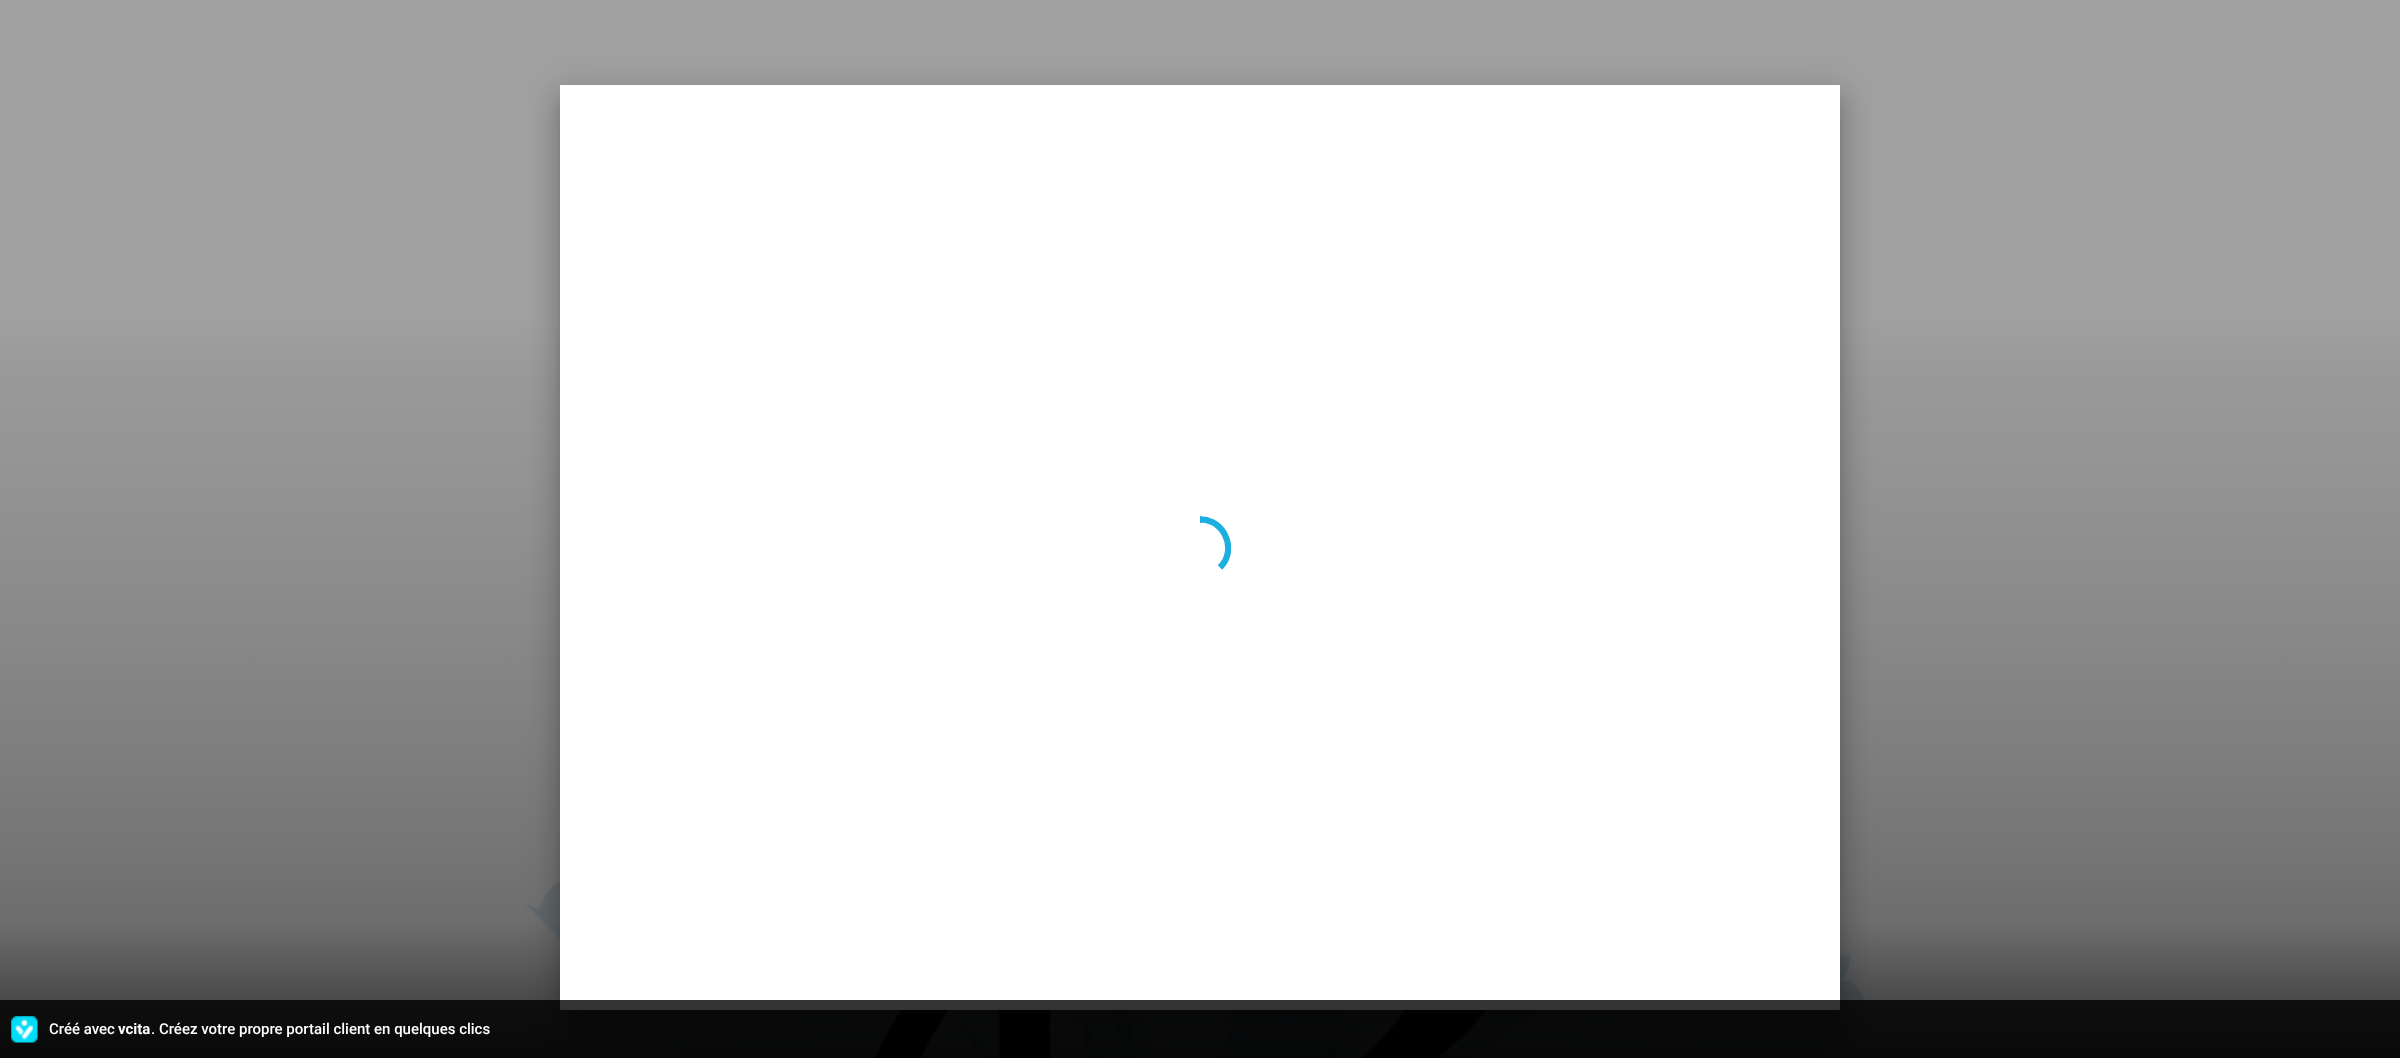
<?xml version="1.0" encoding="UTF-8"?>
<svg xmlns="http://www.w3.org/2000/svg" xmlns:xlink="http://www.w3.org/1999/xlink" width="2400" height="1058">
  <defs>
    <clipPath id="clip1"><rect x="1200" y="516" width="31" height="63" /></clipPath>
  </defs>
  <rect width="100%" height="100%" fill="#ffffff" />
  <image x="0" y="0" width="2400" height="1058" xlink:href="image1.png" />
  <rect x="555" y="86" width="1290" height="935" rx="9" fill="#000000" fill-opacity="0.12" filter="blur(15px)" />
  <rect x="558" y="99" width="1285" height="930" rx="6" fill="#000000" fill-opacity="0.14" filter="blur(12px)" />
  <rect x="565" y="99" width="1270" height="915" fill="#000000" fill-opacity="0.2" filter="blur(5px)" />
  <rect x="560" y="85" width="1280" height="925" fill="#ffffff" />
  <rect y="1000" width="2400" height="58" fill="#000000" fill-opacity="0.8" />
  <image x="11" y="1016" width="27" height="27" xlink:href="image2.png" />
  <rect x="1200" y="516" width="1" height="7" fill="#3f51b5" />
  <g clip-path="url(#clip1)">
    <path d="M 1180 527.5 c 4 -4 9 -6.5 14.5 -7.5 c 27 -5.5 45 28 25.5 47.5" fill="none" stroke="#1dafe0" stroke-width="6.2" />
  </g>
  <text x="49" y="1034" style="font-family: Roboto; font-size: 15px; font-weight: 500; fill: #ffffff">Créé avec</text>
  <text x="118" y="1034" style="font-family: Roboto; font-size: 15px; font-weight: bold; fill: #ffffff">vcita</text>
  <text x="151" y="1034" style="font-family: Roboto; font-size: 15px; font-weight: 500; fill: #ffffff">. Créez votre propre portail client en quelques clics</text>
</svg>
